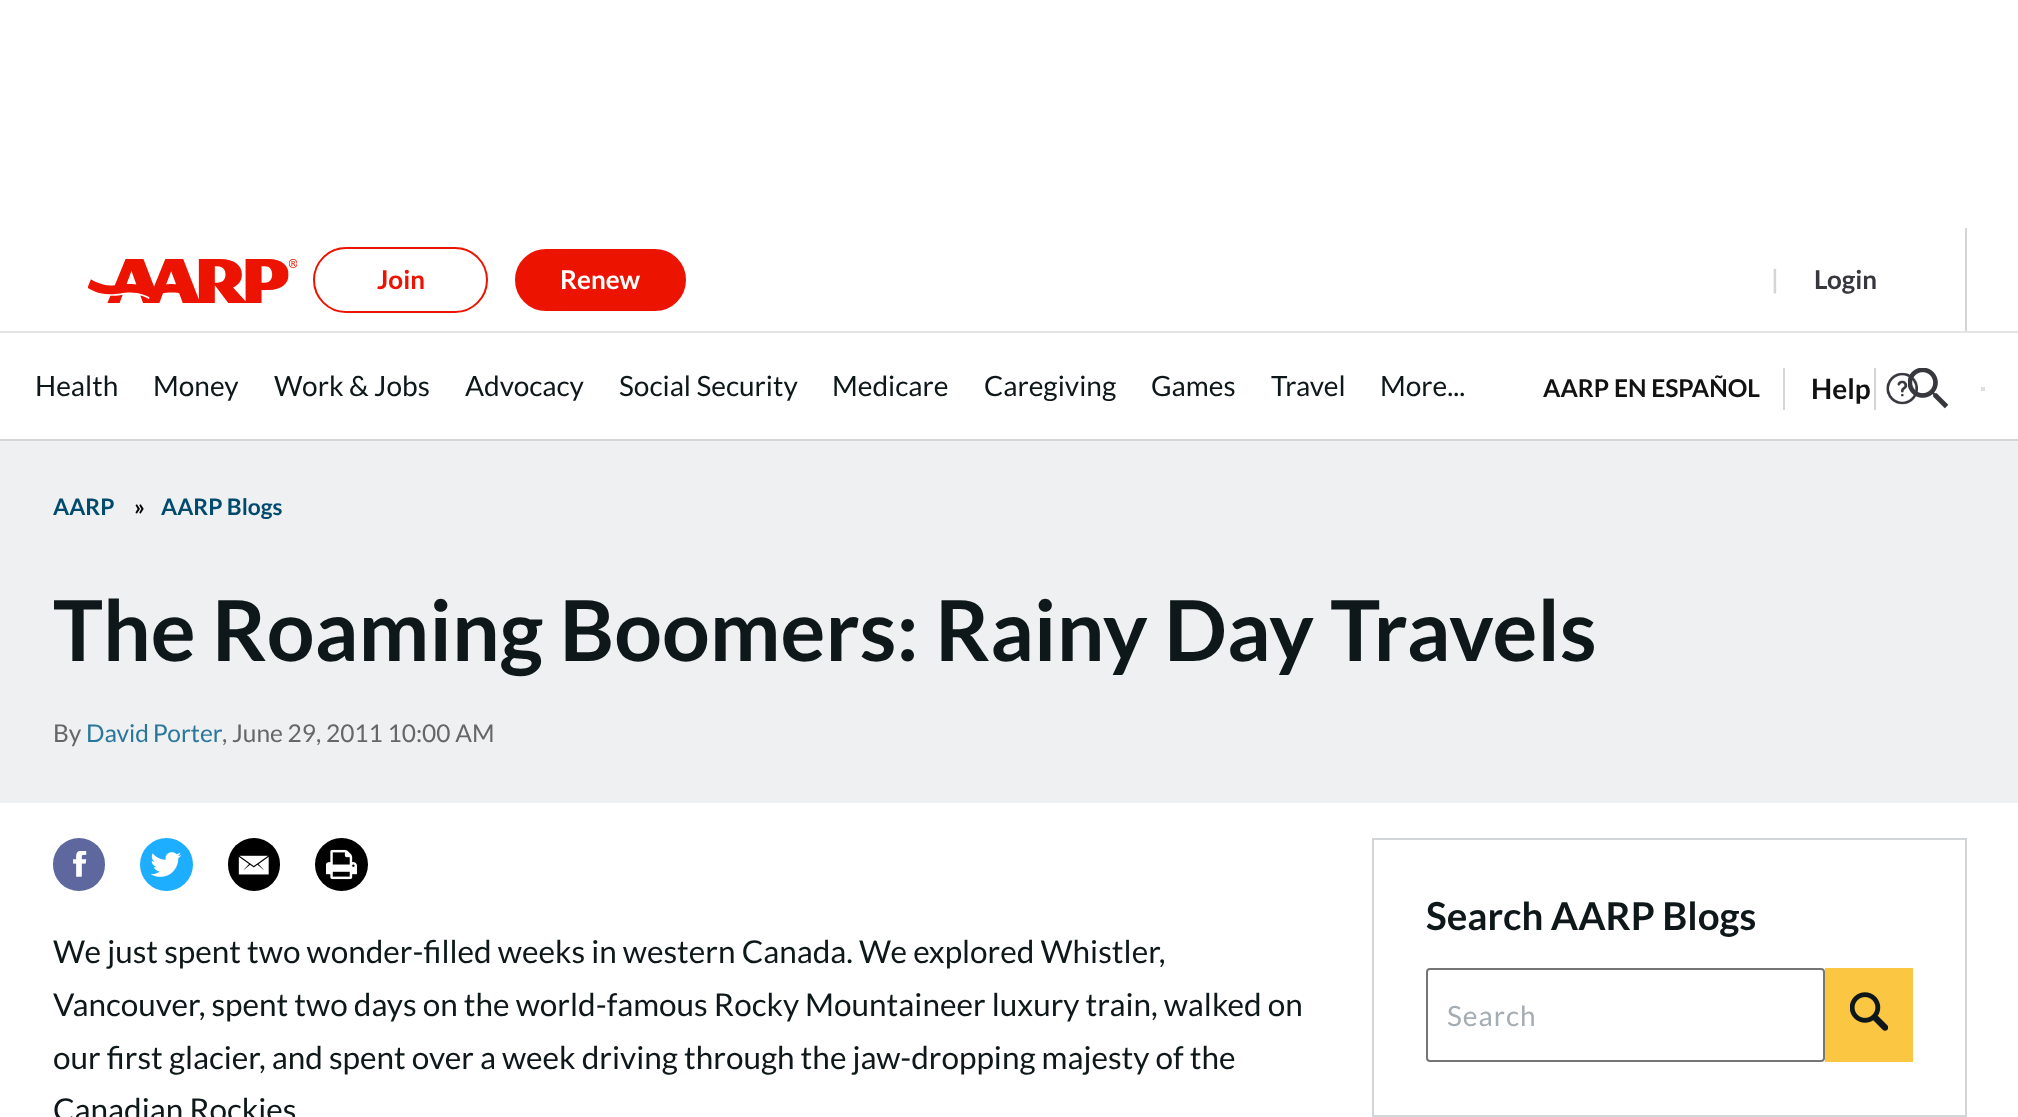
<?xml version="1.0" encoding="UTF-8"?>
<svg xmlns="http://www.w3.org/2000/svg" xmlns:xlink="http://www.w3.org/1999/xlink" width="2018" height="1117">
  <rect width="100%" height="100%" fill="#ffffff" />
  <rect y="331" width="2018" height="2" fill="#e5e5e5" />
  <image x="88" y="259" width="210" height="44" xlink:href="image1.png" />
  <rect x="314" y="248" width="173" height="64" rx="32" fill="none" stroke="#ec1300" stroke-width="2" />
  <rect x="514" y="248" width="173" height="64" rx="32" fill="#ec1300" stroke="#ffffff" stroke-width="2" />
  <rect x="1965" y="228" width="2" height="103" fill="#d5d5d5" />
  <rect y="439" width="2018" height="2" fill="#d5d5d5" />
  <rect x="1874" y="368" width="2" height="42" fill="#d5d5d5" />
  <rect x="1783" y="368" width="2" height="42" fill="#d5d5d5" />
  <image x="1886" y="372" width="32" height="33" xlink:href="image2.png" />
  <image x="1908" y="368" width="41" height="41" xlink:href="image3.png" />
  <rect x="1981" y="387" width="4" height="4" fill="#dfdfdf" />
  <rect y="441" width="2018" height="362" fill="#eef0f1" />
  <rect x="53" y="838" width="52" height="53" rx="26" fill="#5e689f" />
  <image x="73" y="851" width="14" height="26" xlink:href="image4.png" />
  <circle cx="166.5" cy="864.5" r="26.5" fill="#1eaeff" />
  <image x="151" y="852" width="31" height="25" xlink:href="image5.png" />
  <rect x="228" y="838" width="52" height="53" rx="26" fill="#000000" />
  <image x="238" y="855" width="31" height="20" xlink:href="image6.png" />
  <circle cx="341.5" cy="864.5" r="26.5" fill="#000000" />
  <image x="326" y="849" width="31" height="31" xlink:href="image7.png" />
  <rect x="1373" y="839" width="593" height="277" fill="none" stroke="#d2d6d9" stroke-width="2" />
  <rect x="1427" y="969" width="397" height="92" rx="3" fill="none" stroke="#767676" stroke-width="2" />
  <rect x="1825" y="968" width="88" height="94" fill="#fbc743" />
  <image x="1850" y="992" width="38" height="39" xlink:href="image8.png" />
  <text x="377" y="289" style="font-family: Lato; font-size: 26px; font-weight: bold; fill: #ec1300">Join</text>
  <text x="560" y="289" style="font-family: Lato; font-size: 26px; font-weight: bold; fill: #ffffff">Renew</text>
  <text x="1771" y="289" style="font-family: Lato; font-size: 26px; font-weight: bold; fill: #d5d5d5">|</text>
  <text x="1814" y="289" style="font-family: Lato; font-size: 26px; font-weight: bold; fill: #37383d">Login</text>
  <text x="35" y="396" style="font-family: Lato; font-size: 28px; fill: #0e1719">Health</text>
  <text x="153" y="396" style="font-family: Lato; font-size: 28px; fill: #0e1719">Money</text>
  <text x="274" y="396" style="font-family: Lato; font-size: 28px; fill: #0e1719">Work &amp; Jobs</text>
  <text x="465" y="396" style="font-family: Lato; font-size: 28px; fill: #0e1719">Advocacy</text>
  <text x="619" y="396" style="font-family: Lato; font-size: 28px; fill: #0e1719">Social Security</text>
  <text x="832" y="396" style="font-family: Lato; font-size: 28px; fill: #0e1719">Medicare</text>
  <text x="984" y="396" style="font-family: Lato; font-size: 28px; fill: #0e1719">Caregiving</text>
  <text x="1151" y="396" style="font-family: Lato; font-size: 28px; fill: #0e1719">Games</text>
  <text x="1271" y="396" style="font-family: Lato; font-size: 28px; fill: #0e1719">Travel</text>
  <text x="1380" y="396" style="font-family: Lato; font-size: 28px; fill: #0e1719">More...</text>
  <text x="1543" y="397" style="font-family: Lato; font-size: 24.5px; font-weight: bold; fill: #121212">AARP EN ESPAÑOL</text>
  <text x="1811" y="399" style="font-family: Lato; font-size: 28px; font-weight: bold; fill: #121212">Help</text>
  <text x="53" y="515" style="font-family: Lato; font-size: 22.75px; font-weight: bold; fill: #004b6d">AARP</text>
  <text x="134" y="515" style="font-family: Lato; font-size: 22.75px; font-weight: bold; fill: #000000">»</text>
  <text x="161" y="515" style="font-family: Lato; font-size: 22.75px; font-weight: bold; fill: #004b6d">AARP Blogs</text>
  <text x="53" y="661" style="font-family: Lato; font-size: 84px; font-weight: bold; fill: #0e1719">The Roaming Boomers: Rainy Day Travels</text>
  <text x="53" y="742" style="font-family: Lato; font-size: 24.5px; fill: #666666">By</text>
  <text x="86" y="742" word-spacing="-1" style="font-family: Lato; font-size: 24.5px; fill: #2b779b">David Porter</text>
  <text x="222" y="742" style="font-family: Lato; font-size: 24.5px; fill: #666666">, June 29, 2011 10:00 AM</text>
  <text x="53" y="963" style="font-family: Lato; font-size: 31.5px; fill: #0e1719">We just spent two wonder-filled weeks in western Canada. We explored Whistler,</text>
  <text x="53" y="1016" style="font-family: Lato; font-size: 31.5px; fill: #0e1719">Vancouver, spent two days on the world-famous Rocky Mountaineer luxury train, walked on</text>
  <text x="53" y="1069" style="font-family: Lato; font-size: 31.5px; fill: #0e1719">our first glacier, and spent over a week driving through the jaw-dropping majesty of the</text>
  <text x="53" y="1121" style="font-family: Lato; font-size: 31.5px; fill: #0e1719">Canadian Rockies</text>
  <text x="1426" y="930" style="font-family: Lato; font-size: 38.5px; font-weight: bold; fill: #0e1719">Search AARP Blogs</text>
  <text x="1447" y="1026" style="font-family: Lato; font-size: 28px; letter-spacing: 1px; fill: #a4adb3">Search</text>
</svg>
